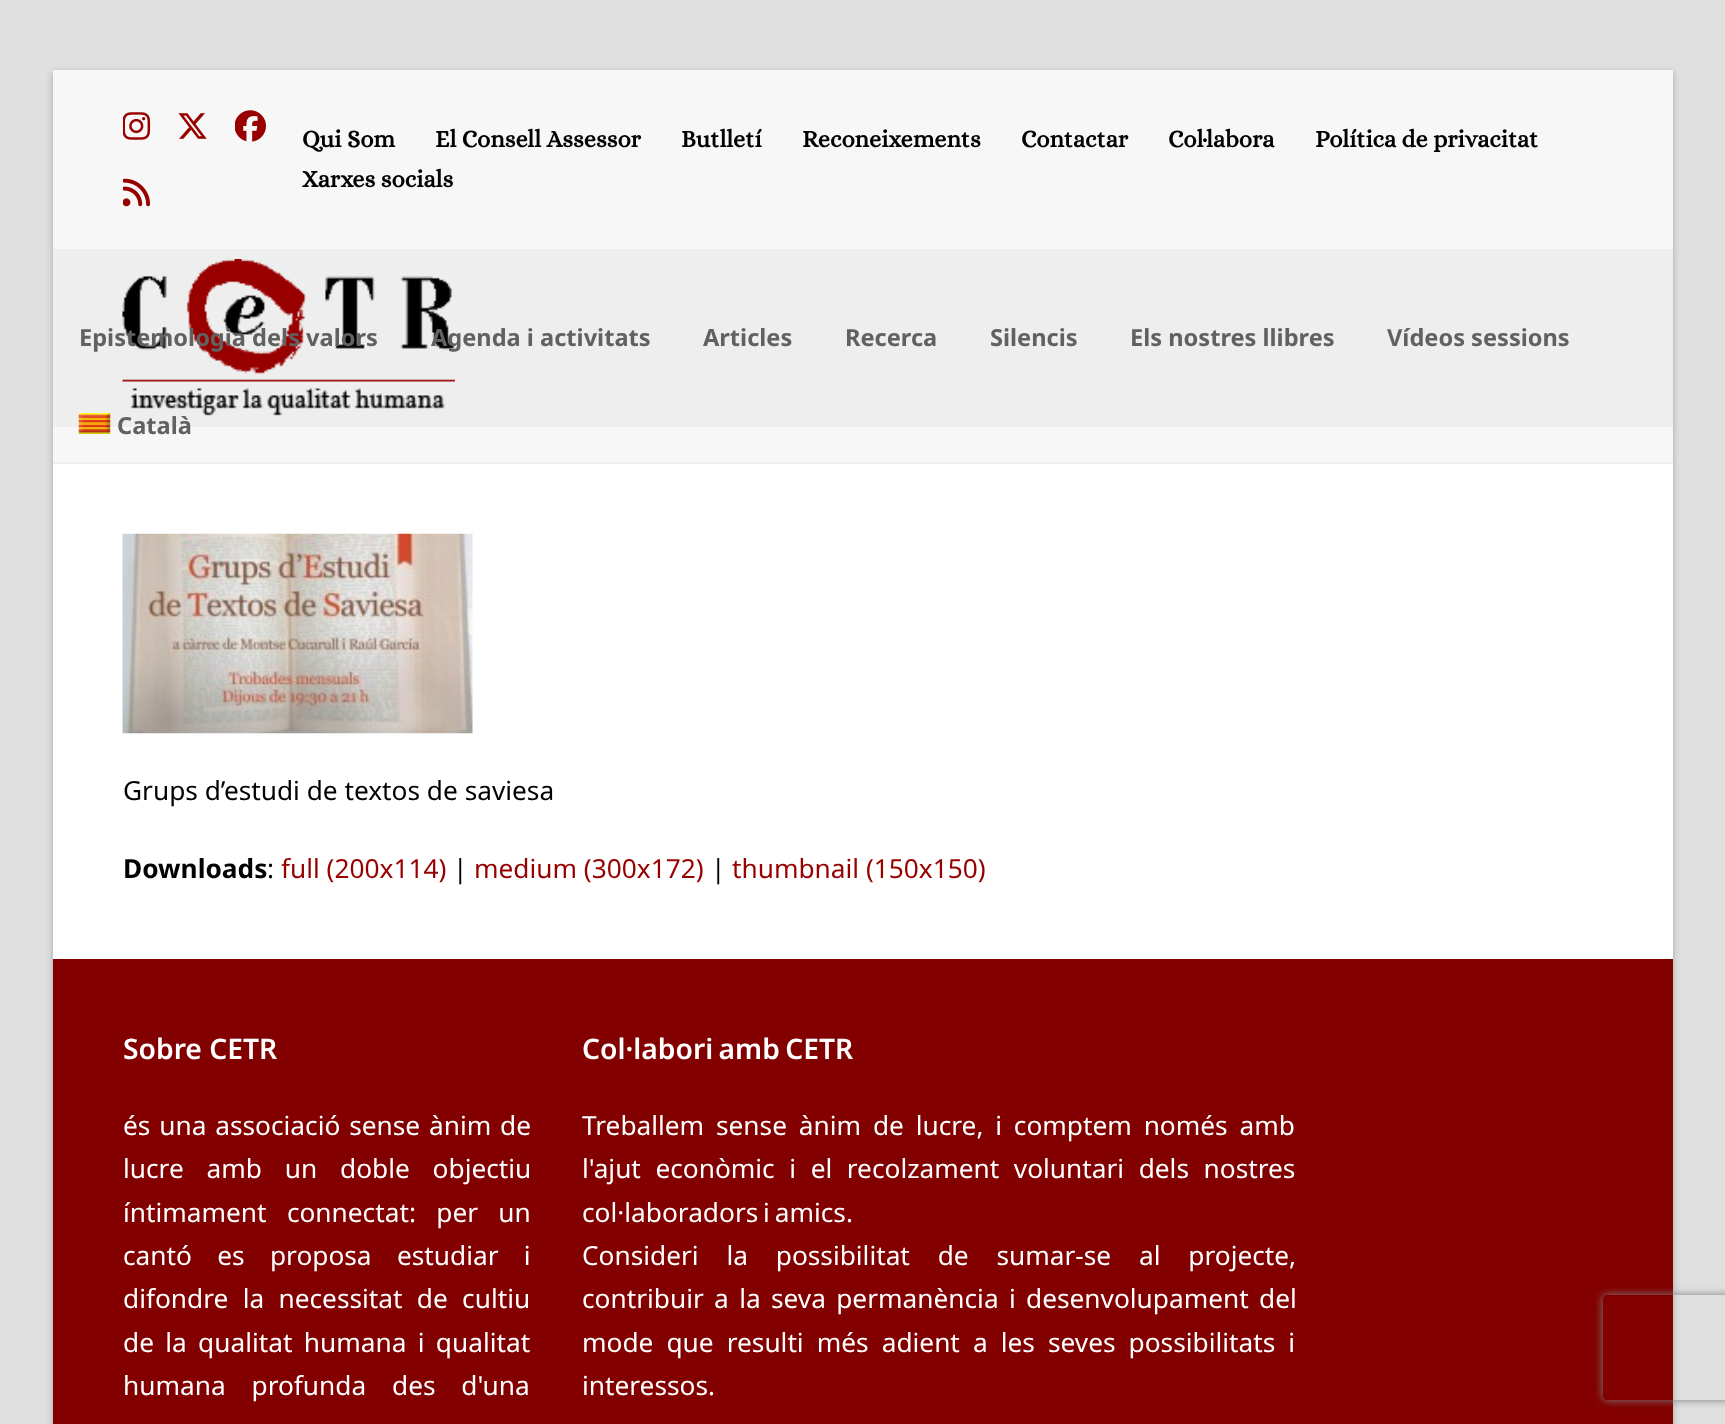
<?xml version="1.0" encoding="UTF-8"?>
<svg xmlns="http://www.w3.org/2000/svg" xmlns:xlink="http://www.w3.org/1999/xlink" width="1725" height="1424">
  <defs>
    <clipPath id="clip1"><path d="M 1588 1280 h 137 v 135 h -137 z m 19 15 h 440 c 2 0 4 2 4 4 v 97 c 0 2 -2 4 -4 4 h -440 c -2 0 -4 -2 -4 -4 v -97 c 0 -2 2 -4 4 -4 z" clip-rule="evenodd" /></clipPath>
  </defs>
  <rect width="100%" height="100%" fill="#e0e0e0" />
  <rect x="53" y="72" width="1620" height="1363" fill="#000000" fill-opacity="0.25" filter="blur(3.5px)" />
  <rect x="53" y="464" width="1620" height="495" fill="#ffffff" />
  <rect x="53" y="70" width="1620" height="179" fill="#f7f7f7" />
  <rect x="53" y="249" width="1620" height="178" fill="#eeeeee" />
  <image x="123" y="112" width="28" height="28" xlink:href="image1.png" />
  <image x="178" y="113" width="29" height="26" xlink:href="image2.png" />
  <image x="235" y="110" width="31" height="32" xlink:href="image3.png" />
  <image x="123" y="178" width="28" height="29" xlink:href="image4.png" />
  <image x="122" y="259" width="333" height="157" xlink:href="image5.png" />
  <rect x="53" y="427" width="1620" height="35" fill="#f7f7f7" />
  <image x="78" y="413" width="33" height="21" xlink:href="image6.png" />
  <rect x="53" y="462" width="1620" height="2" fill="#eeeeee" />
  <image x="122" y="533" width="351" height="201" xlink:href="image7.png" />
  <rect x="53" y="959" width="1620" height="465" fill="#820000" />
  <g clip-path="url(#clip1)">
    <rect x="1603" y="1295" width="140" height="105" rx="4" fill="#808080" filter="blur(4.5px)" />
  </g>
  <text x="302" y="147" style="font-family: Alice; font-size: 24.25px; font-weight: bold; fill: #020202">Qui Som</text>
  <text x="435" y="147" style="font-family: Alice; font-size: 24.25px; font-weight: bold; fill: #020202">El Consell Assessor</text>
  <text x="681" y="147" style="font-family: Alice; font-size: 24.25px; font-weight: bold; fill: #020202">Butlletí</text>
  <text x="802" y="147" style="font-family: Alice; font-size: 24.25px; font-weight: bold; fill: #020202">Reconeixements</text>
  <text x="1021" y="147" style="font-family: Alice; font-size: 24.25px; font-weight: bold; fill: #020202">Contactar</text>
  <text x="1168" y="147" style="font-family: Alice; font-size: 24.25px; font-weight: bold; fill: #020202">Col·labora</text>
  <text x="1315" y="147" style="font-family: Alice; font-size: 24.25px; font-weight: bold; fill: #020202">Política de privacitat</text>
  <text x="302" y="187" style="font-family: Alice; font-size: 24.25px; font-weight: bold; fill: #020202">Xarxes socials</text>
  <text x="79" y="346" style="font-family: Noto Sans; font-size: 23.6px; font-weight: bold; fill: #616161">Epistemologia dels valors</text>
  <text x="431" y="346" style="font-family: Noto Sans; font-size: 23.6px; font-weight: bold; fill: #616161">Agenda i activitats</text>
  <text x="703" y="346" style="font-family: Noto Sans; font-size: 23.6px; font-weight: bold; fill: #616161">Articles</text>
  <text x="845" y="346" style="font-family: Noto Sans; font-size: 23.6px; font-weight: bold; fill: #616161">Recerca</text>
  <text x="990" y="346" style="font-family: Noto Sans; font-size: 23.6px; font-weight: bold; fill: #616161">Silencis</text>
  <text x="1130" y="346" style="font-family: Noto Sans; font-size: 23.6px; font-weight: bold; fill: #616161">Els nostres llibres</text>
  <text x="1387" y="346" style="font-family: Noto Sans; font-size: 23.6px; font-weight: bold; fill: #616161">Vídeos sessions</text>
  <text x="117" y="434" style="font-family: Noto Sans; font-size: 23.6px; font-weight: bold; fill: #616161">Català</text>
  <text x="123" y="800" style="font-family: Noto Sans; font-size: 26.25px; fill: #020202">Grups d’estudi de textos de saviesa</text>
  <text x="123" y="878" style="font-family: Noto Sans; font-size: 26.25px; font-weight: bold; fill: #020202">Downloads</text>
  <text x="267" y="878" style="font-family: Noto Sans; font-size: 26.25px; fill: #020202">:</text>
  <text x="281" y="878" style="font-family: Noto Sans; font-size: 26.25px; fill: #980000">full (200x114)</text>
  <text x="453" y="878" style="font-family: Noto Sans; font-size: 26.25px; fill: #020202">|</text>
  <text x="474" y="878" style="font-family: Noto Sans; font-size: 26.25px; fill: #980000">medium (300x172)</text>
  <text x="711" y="878" style="font-family: Noto Sans; font-size: 26.25px; fill: #020202">|</text>
  <text x="732" y="878" style="font-family: Noto Sans; font-size: 26.25px; fill: #980000">thumbnail (150x150)</text>
  <text x="123" y="1059" style="font-family: Noto Sans; font-size: 28.25px; font-weight: 600; fill: #ffffff">Sobre CETR</text>
  <text x="123" y="1135" word-spacing="2" style="font-family: Noto Sans; font-size: 26.25px; fill: #ffffff">és una associació sense ànim de</text>
  <text x="123" y="1178" word-spacing="16" style="font-family: Noto Sans; font-size: 26.25px; fill: #ffffff">lucre amb un doble objectiu</text>
  <text x="123" y="1222" word-spacing="13.5" style="font-family: Noto Sans; font-size: 26.25px; fill: #ffffff">íntimament connectat: per un</text>
  <text x="123" y="1265" word-spacing="18.5" style="font-family: Noto Sans; font-size: 26.25px; fill: #ffffff">cantó es proposa estudiar i</text>
  <text x="123" y="1308" word-spacing="7.5" style="font-family: Noto Sans; font-size: 26.25px; fill: #ffffff">difondre la necessitat de cultiu</text>
  <text x="123" y="1352" word-spacing="4.5" style="font-family: Noto Sans; font-size: 26.25px; fill: #ffffff">de la qualitat humana i qualitat</text>
  <text x="123" y="1395" word-spacing="19" style="font-family: Noto Sans; font-size: 26.25px; fill: #ffffff">humana profunda des d'una</text>
  <text x="582" y="1059" word-spacing="-2" style="font-family: Noto Sans; font-size: 28.25px; font-weight: 600; fill: #ffffff">Col·labori amb CETR</text>
  <text x="582" y="1135" word-spacing="5" style="font-family: Noto Sans; font-size: 26.25px; fill: #ffffff">Treballem sense ànim de lucre, i comptem només amb</text>
  <text x="582" y="1178" word-spacing="7.75" style="font-family: Noto Sans; font-size: 26.25px; fill: #ffffff">l'ajut econòmic i el recolzament voluntari dels nostres</text>
  <text x="582" y="1222" word-spacing="-2" style="font-family: Noto Sans; font-size: 26.25px; fill: #ffffff">col·laboradors i amics.</text>
  <text x="582" y="1265" word-spacing="21" style="font-family: Noto Sans; font-size: 26.25px; fill: #ffffff">Consideri la possibilitat de sumar-se al projecte,</text>
  <text x="582" y="1308" word-spacing="3.5" style="font-family: Noto Sans; font-size: 26.25px; fill: #ffffff">contribuir a la seva permanència i desenvolupament del</text>
  <text x="582" y="1352" word-spacing="6.25" style="font-family: Noto Sans; font-size: 26.25px; fill: #ffffff">mode que resulti més adient a les seves possibilitats i</text>
  <text x="582" y="1395" style="font-family: Noto Sans; font-size: 26.25px; fill: #ffffff">interessos.</text>
</svg>
